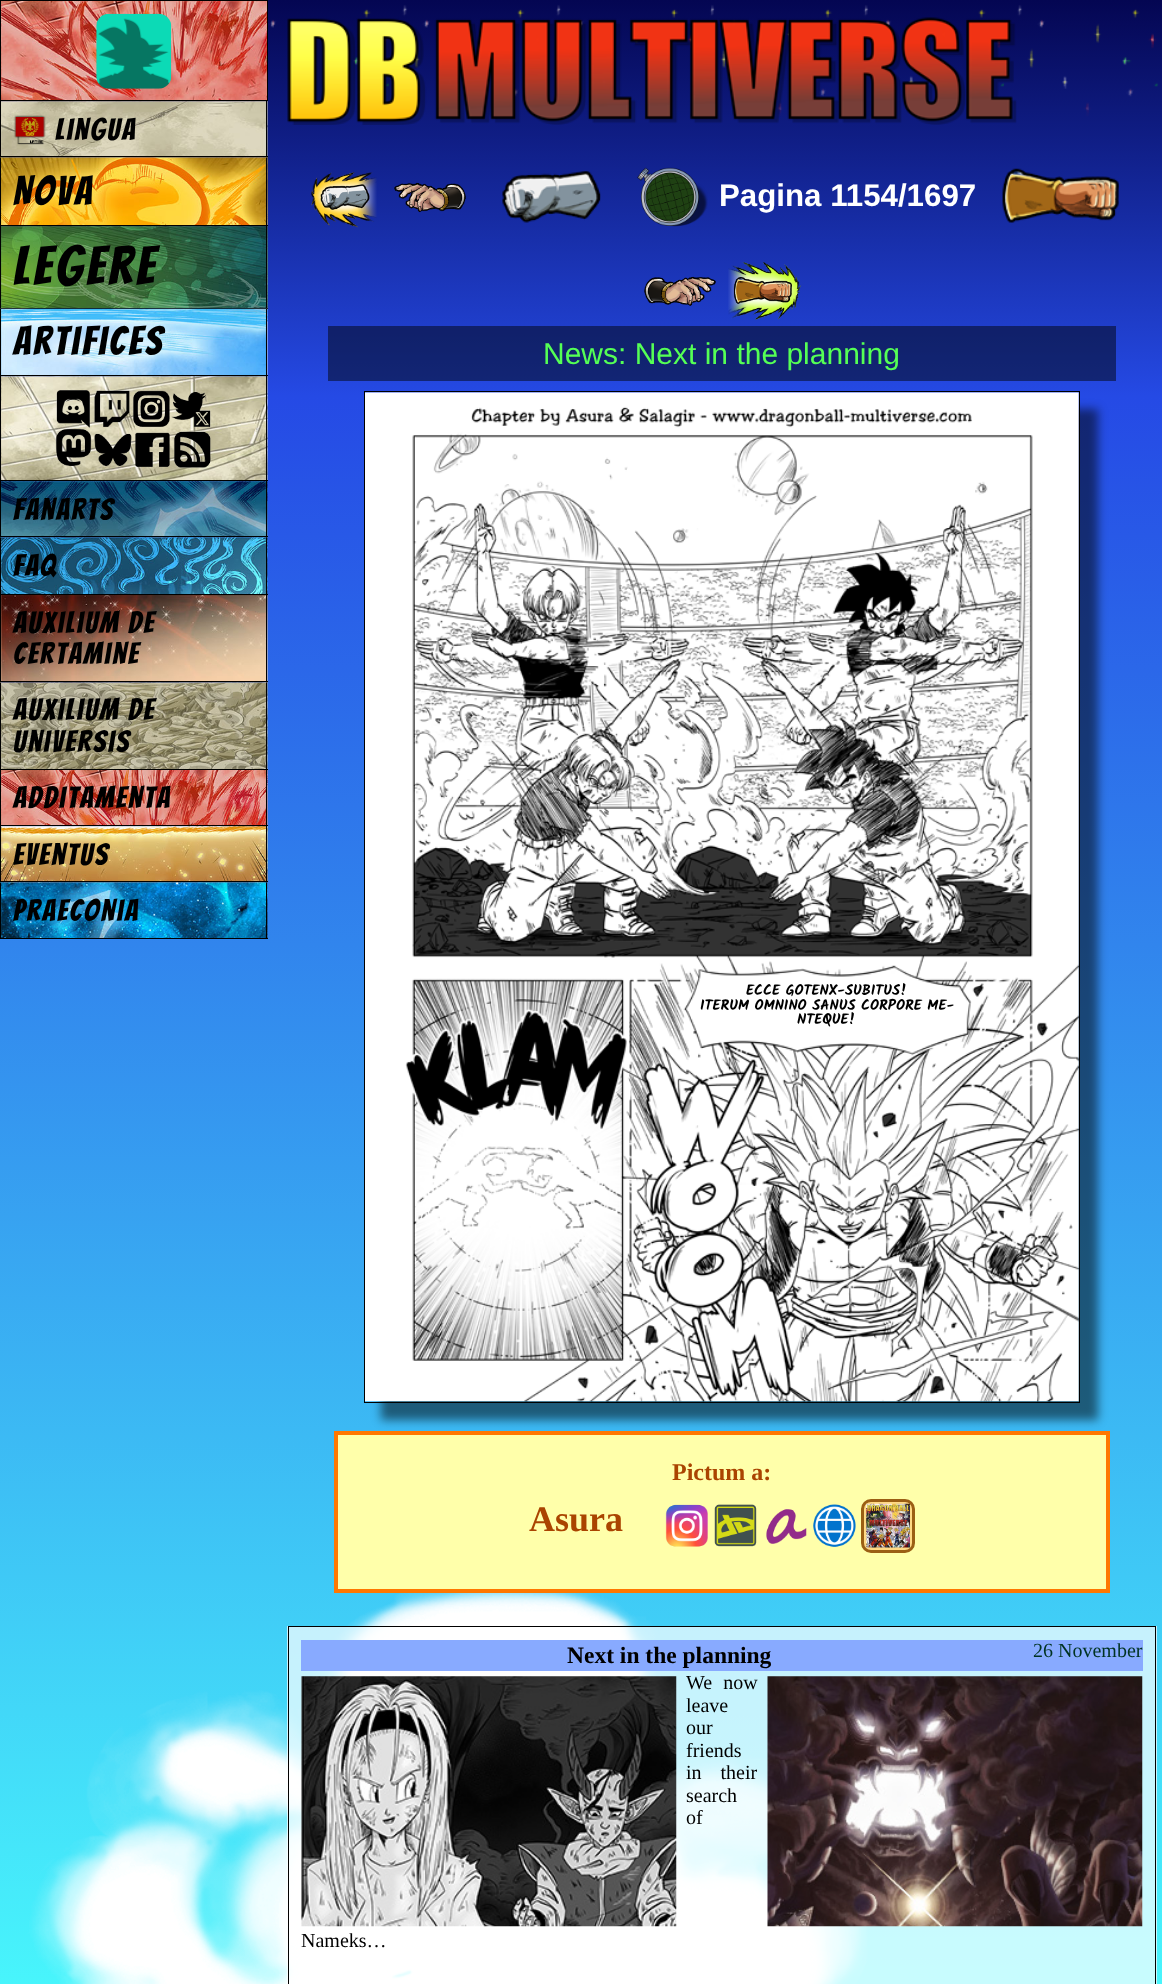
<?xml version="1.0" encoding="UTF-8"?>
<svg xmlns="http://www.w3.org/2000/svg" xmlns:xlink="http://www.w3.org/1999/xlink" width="1162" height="1984">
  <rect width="100%" height="100%" fill="#ffffff" />
  <image x="0" y="0" width="1162" height="1984" xlink:href="image1.png" />
  <image x="1" y="1" width="267" height="101" xlink:href="image2.png" />
  <rect x="0.5" y="0.5" width="267" height="100" fill="none" stroke="#000000" />
  <image x="96" y="13" width="76" height="76" xlink:href="image3.png" />
  <image x="1" y="101" width="267" height="57" xlink:href="image4.png" />
  <rect x="266" y="101" width="1" height="57" fill="#000000" />
  <rect y="156" width="268" height="1" fill="#000000" />
  <rect y="101" width="1" height="57" fill="#000000" />
  <image x="13" y="115" width="33" height="30" xlink:href="image5.png" />
  <image x="0" y="157" width="268" height="70" xlink:href="image6.png" />
  <rect x="266" y="158" width="1" height="68" fill="#000000" />
  <rect y="225" width="268" height="1" fill="#000000" />
  <rect y="158" width="1" height="68" fill="#000000" />
  <image x="1" y="226" width="267" height="82" xlink:href="image7.png" />
  <rect x="266" y="226" width="1" height="83" fill="#000000" />
  <rect y="308" width="268" height="1" fill="#000000" />
  <rect y="226" width="1" height="83" fill="#000000" />
  <image x="0" y="308" width="268" height="69" xlink:href="image8.png" />
  <rect x="266" y="309" width="1" height="67" fill="#000000" />
  <rect y="375" width="268" height="1" fill="#000000" />
  <rect y="309" width="1" height="67" fill="#000000" />
  <image x="1" y="376" width="267" height="106" xlink:href="image9.png" />
  <rect x="266" y="376" width="1" height="105" fill="#000000" />
  <rect y="480" width="268" height="1" fill="#000000" />
  <rect y="376" width="1" height="105" fill="#000000" />
  <image x="55" y="390" width="156" height="78" xlink:href="image10.png" />
  <image x="1" y="481" width="267" height="57" xlink:href="image11.png" />
  <rect x="266" y="481" width="1" height="57" fill="#000000" />
  <rect y="536" width="268" height="1" fill="#000000" />
  <rect y="481" width="1" height="57" fill="#000000" />
  <image x="0" y="537" width="268" height="57" xlink:href="image12.png" />
  <rect x="266" y="538" width="1" height="57" fill="#000000" />
  <rect y="594" width="268" height="1" fill="#000000" />
  <rect y="538" width="1" height="57" fill="#000000" />
  <image x="1" y="595" width="267" height="88" xlink:href="image13.png" />
  <rect x="266" y="595" width="1" height="88" fill="#000000" />
  <rect y="681" width="268" height="1" fill="#000000" />
  <rect y="595" width="1" height="88" fill="#000000" />
  <image x="0" y="682" width="268" height="87" xlink:href="image14.png" />
  <rect x="266" y="683" width="1" height="87" fill="#000000" />
  <rect y="769" width="268" height="1" fill="#000000" />
  <rect y="683" width="1" height="87" fill="#000000" />
  <image x="1" y="770" width="267" height="57" xlink:href="image15.png" />
  <rect x="266" y="770" width="1" height="56" fill="#000000" />
  <rect y="825" width="268" height="1" fill="#000000" />
  <rect y="770" width="1" height="56" fill="#000000" />
  <image x="1" y="826" width="267" height="57" xlink:href="image16.png" />
  <rect x="266" y="826" width="1" height="57" fill="#000000" />
  <rect y="881" width="268" height="1" fill="#000000" />
  <rect y="826" width="1" height="57" fill="#000000" />
  <image x="0" y="882" width="268" height="56" xlink:href="image17.png" />
  <rect x="266" y="883" width="1" height="56" fill="#000000" />
  <rect y="938" width="268" height="1" fill="#000000" />
  <rect y="883" width="1" height="56" fill="#000000" />
  <image x="287" y="17" width="730" height="108" xlink:href="image18.png" />
  <image x="311" y="172" width="66" height="56" xlink:href="image19.png" />
  <image x="394" y="182" width="72" height="31" xlink:href="image20.png" />
  <image x="502" y="171" width="99" height="52" xlink:href="image21.png" />
  <image x="637" y="167" width="71" height="60" xlink:href="image22.png" />
  <image x="1002" y="168" width="117" height="55" xlink:href="image23.png" />
  <image x="644" y="276" width="72" height="30" xlink:href="image24.png" />
  <image x="728" y="262" width="74" height="58" xlink:href="image25.png" />
  <rect x="328" y="326" width="788" height="55" fill="#000000" fill-opacity="0.48" />
  <rect x="336" y="1433" width="772" height="158" fill="#ffffaa" stroke="#ff7700" stroke-width="4" />
  <rect x="381" y="409" width="717" height="1011" fill="#000000" fill-opacity="0.5" filter="blur(5px)" />
  <image x="365" y="392" width="714" height="1010" xlink:href="image26.png" />
  <rect x="364.5" y="391.5" width="715" height="1011" fill="none" stroke="#000000" />
  <image x="665" y="1504" width="43" height="43" xlink:href="image27.png" />
  <image x="714" y="1504" width="43" height="43" xlink:href="image28.png" />
  <image x="766" y="1509" width="41" height="35" xlink:href="image29.png" />
  <image x="813" y="1504" width="43" height="43" xlink:href="image30.png" />
  <rect x="862.5" y="1500.5" width="51" height="51" rx="8.5" fill="#ffd984" stroke="#9b5f14" stroke-width="3" />
  <image x="866" y="1503" width="44" height="45" xlink:href="image31.png" />
  <rect x="287" y="1626" width="870" height="358" fill="#ffffff" fill-opacity="0.7" />
  <rect x="288.5" y="1626.5" width="867" height="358" fill="none" stroke="#000000" />
  <rect x="301" y="1640" width="842" height="31" fill="#88aaff" />
  <image x="301" y="1676" width="376" height="251" xlink:href="image32.png" />
  <image x="767" y="1676" width="376" height="251" xlink:href="image33.png" />
  <text x="55" y="140" style="font-family: Bangers; font-size: 30px; letter-spacing: 2.1px; fill: #000000">Lingua</text>
  <text x="13" y="205" style="font-family: Bangers; font-size: 40px; letter-spacing: 2.75px; fill: #000000">Nova</text>
  <text x="13" y="285" style="font-family: Bangers; font-size: 54px; letter-spacing: 3.75px; fill: #000000">Legere</text>
  <text x="13" y="355" style="font-family: Bangers; font-size: 40px; letter-spacing: 2.75px; fill: #000000">Artifices</text>
  <text x="13" y="520" style="font-family: Bangers; font-size: 30px; letter-spacing: 2.1px; fill: #000000">Fanarts</text>
  <text x="13" y="576" style="font-family: Bangers; font-size: 30px; letter-spacing: 2.1px; fill: #000000">FAQ</text>
  <text x="13" y="633" style="font-family: Bangers; font-size: 30px; letter-spacing: 2.1px; fill: #000000">Auxilium de</text>
  <text x="13" y="664" style="font-family: Bangers; font-size: 30px; letter-spacing: 2.1px; fill: #000000">certamine</text>
  <text x="13" y="720" style="font-family: Bangers; font-size: 30px; letter-spacing: 2.1px; fill: #000000">Auxilium de</text>
  <text x="13" y="752" style="font-family: Bangers; font-size: 30px; letter-spacing: 2.1px; fill: #000000">universis</text>
  <text x="13" y="808" style="font-family: Bangers; font-size: 30px; letter-spacing: 2.1px; fill: #000000">Additamenta</text>
  <text x="13" y="865" style="font-family: Bangers; font-size: 30px; letter-spacing: 2.1px; fill: #000000">Eventus</text>
  <text x="13" y="921" style="font-family: Bangers; font-size: 30px; letter-spacing: 2.1px; fill: #000000">Praeconia</text>
  <text x="719" y="206" style="font-family: Liberation Sans; font-size: 31.25px; font-weight: bold; fill: #ffffff">Pagina 1154/1697</text>
  <text x="543" y="364" style="font-family: Liberation Sans; font-size: 30px; fill: #55ff55">News: Next in the planning</text>
  <text x="746" y="995" style="font-family: Kalam; font-size: 14.6px; font-weight: bold; fill: #000000">ECCE GOTENX-SUBITUS!</text>
  <text x="700" y="1010" style="font-family: Kalam; font-size: 14.6px; font-weight: bold; fill: #000000">ITERUM OMNINO SANUS CORPORE ME-</text>
  <text x="797" y="1024" style="font-family: Kalam; font-size: 14.6px; font-weight: bold; fill: #000000">NTEQUE!</text>
  <text x="672" y="1480" style="font-family: Liberation Serif; font-size: 24px; font-weight: bold; fill: #aa4400">Pictum a:</text>
  <text x="529" y="1531" style="font-family: Liberation Serif; font-size: 36px; font-weight: bold; fill: #aa4400">Asura</text>
  <text x="567" y="1663" style="font-family: Liberation Serif; font-size: 23.5px; font-weight: bold; fill: #000000">Next in the planning</text>
  <text x="1033" y="1657" style="font-family: Liberation Serif; font-size: 20px; fill: #003322">26 November</text>
  <text x="686" y="1689" word-spacing="6" style="font-family: Liberation Serif; font-size: 20px; fill: #000000">We now</text>
  <text x="686" y="1712" style="font-family: Liberation Serif; font-size: 20px; fill: #000000">leave</text>
  <text x="686" y="1734" style="font-family: Liberation Serif; font-size: 20px; fill: #000000">our</text>
  <text x="686" y="1757" style="font-family: Liberation Serif; font-size: 20px; fill: #000000">friends</text>
  <text x="686" y="1779" word-spacing="14" style="font-family: Liberation Serif; font-size: 20px; fill: #000000">in their</text>
  <text x="686" y="1802" style="font-family: Liberation Serif; font-size: 20px; fill: #000000">search</text>
  <text x="686" y="1824" style="font-family: Liberation Serif; font-size: 20px; fill: #000000">of</text>
  <text x="301" y="1947" style="font-family: Liberation Serif; font-size: 20px; fill: #000000">Nameks…</text>
</svg>
